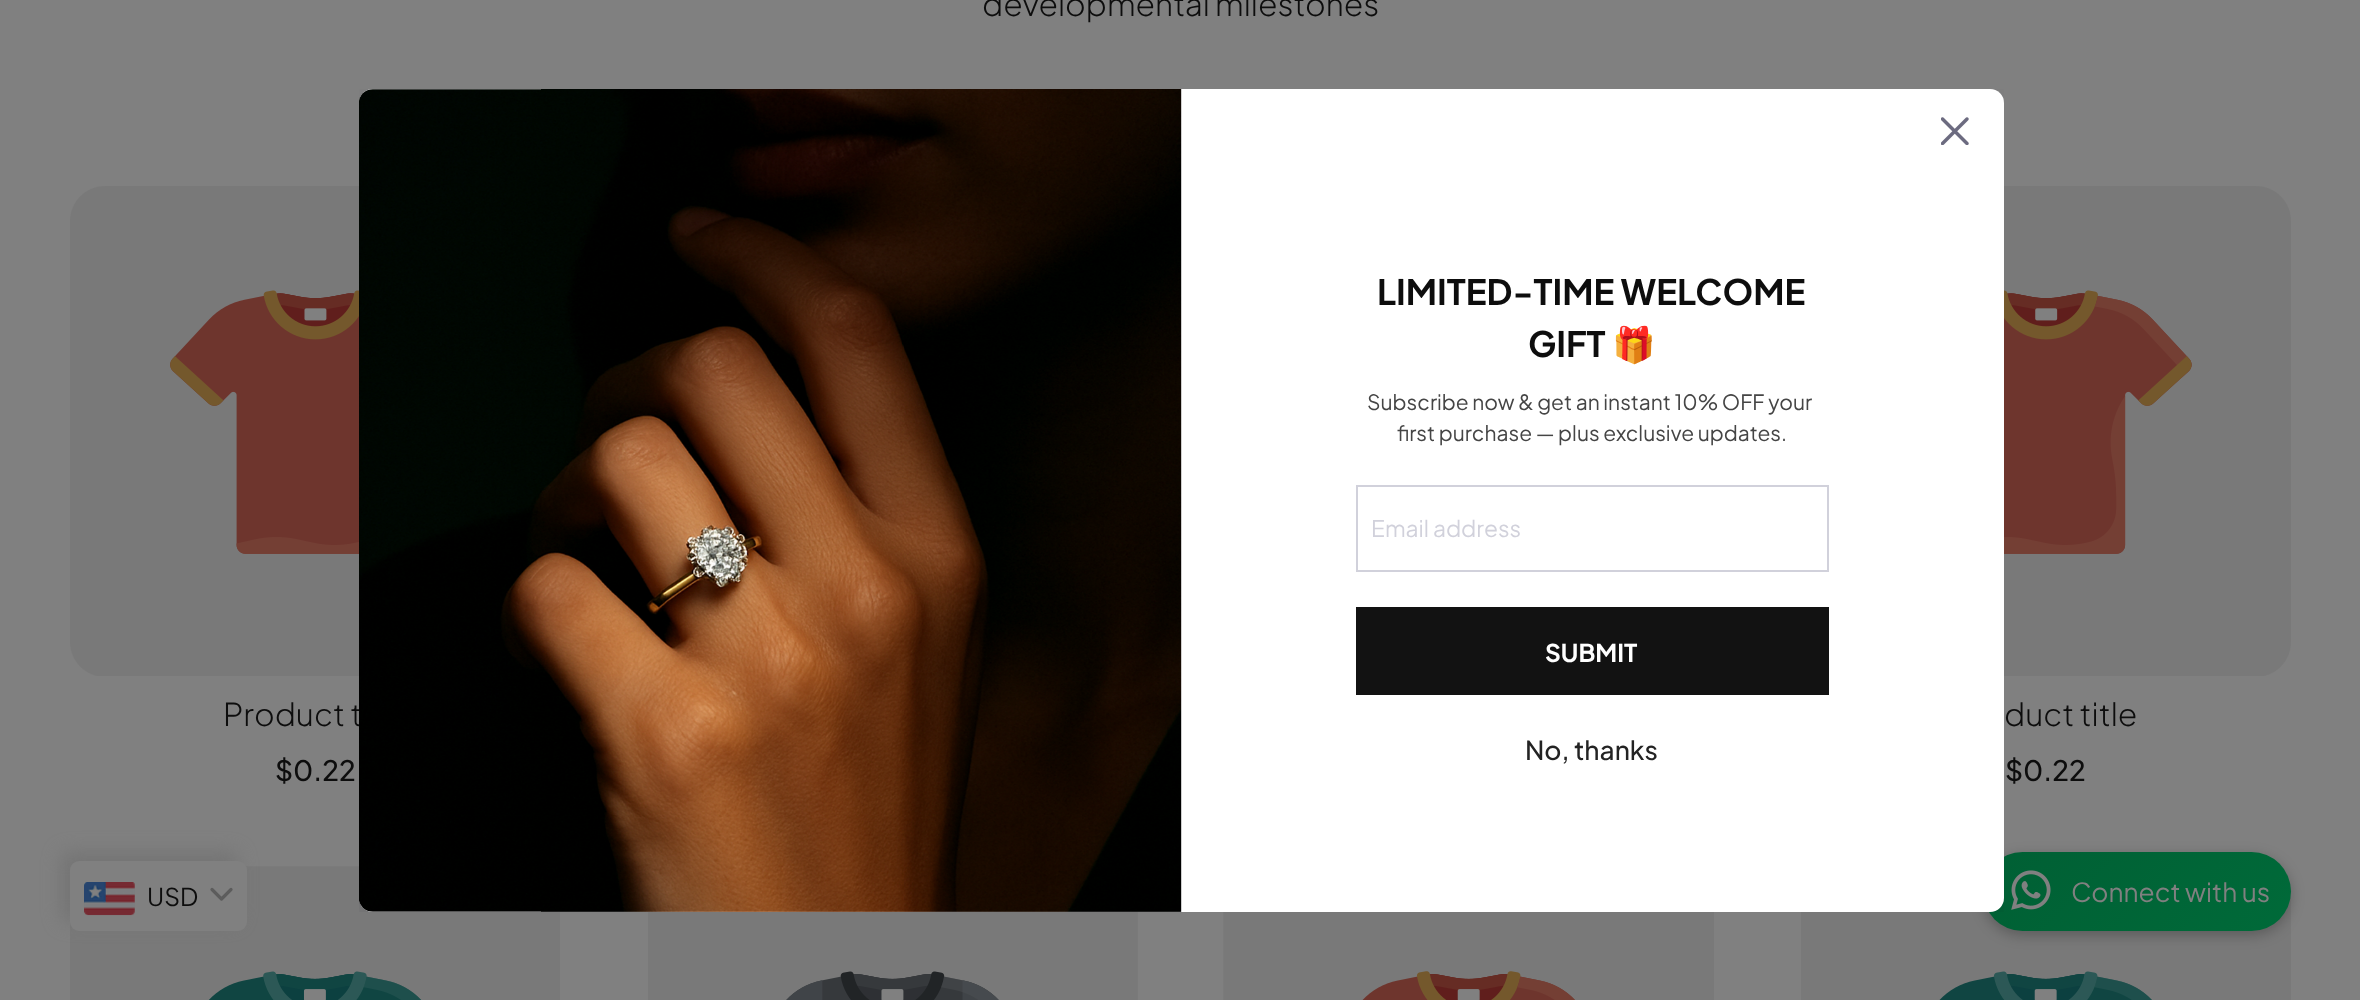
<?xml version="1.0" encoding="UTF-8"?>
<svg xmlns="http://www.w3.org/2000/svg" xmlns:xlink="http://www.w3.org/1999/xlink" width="2360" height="1000">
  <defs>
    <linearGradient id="g1" gradientUnits="userSpaceOnUse" x1="2040" y1="795" x2="2233" y2="988"><stop offset="0" stop-color="#005f34" /><stop offset="1" stop-color="#006a39" /></linearGradient>
    <clipPath id="clip1"><rect x="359" y="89" width="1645" height="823" /></clipPath>
  </defs>
  <rect width="100%" height="100%" fill="#808080" />
  <image x="70" y="186" width="289" height="490" xlink:href="image1.png" />
  <image x="2004" y="186" width="287" height="490" xlink:href="image2.png" />
  <image x="70" y="866" width="490" height="134" xlink:href="image3.png" />
  <image x="648" y="912" width="490" height="88" xlink:href="image4.png" />
  <image x="1223" y="912" width="491" height="88" xlink:href="image5.png" />
  <image x="1801" y="893" width="490" height="107" xlink:href="image6.png" />
  <rect x="1983" y="856" width="308" height="79" rx="39.5" fill="#000000" fill-opacity="0.25" filter="blur(7px)" />
  <rect x="1983" y="852" width="308" height="79" rx="39.5" fill="url(#g1)" />
  <image x="2011" y="870" width="40" height="40" xlink:href="image10.png" />
  <g clip-path="url(#clip1)">
    <rect x="359" y="103" width="1645" height="823" rx="14" fill="#121127" fill-opacity="0.1" filter="blur(17.5px)" />
  </g>
  <rect x="61" y="852" width="177" height="70" rx="9" fill="#747474" filter="blur(9px)" />
  <rect x="70" y="861" width="177" height="70" rx="9" fill="#808080" />
  <image x="84" y="882" width="51" height="34" xlink:href="image9.png" />
  <path d="M 212 889.5 l 9.5 9.5 l 9.5 -9.5" fill="none" stroke="#5c5c5c" stroke-width="3.2" stroke-linecap="round" stroke-linejoin="round" />
  <text x="982" y="16" style="font-family: Plus Jakarta Sans; font-size: 31.5px; font-weight: 300; fill: #0d0d0d">developmental milestones</text>
  <text x="223" y="726" style="font-family: Plus Jakarta Sans; font-size: 31.5px; font-weight: 300; fill: #0d0d0d">Product t</text>
  <text x="275" y="781" style="font-family: Plus Jakarta Sans; font-size: 28px; font-weight: 500; fill: #0d0d0d">$0.22</text>
  <text x="2004" y="726" style="font-family: Plus Jakarta Sans; font-size: 31.5px; font-weight: 300; fill: #0d0d0d">duct title</text>
  <text x="2005" y="781" style="font-family: Plus Jakarta Sans; font-size: 28px; font-weight: 500; fill: #0d0d0d">$0.22</text>
  <rect x="359" y="89" width="1645" height="823" rx="14" fill="#ffffff" />
  <path d="M 373 89 h 808 v 823 h -808 c -7.5 0 -14 -6.5 -14 -14 v -795 c 0 -7.5 6.5 -14 14 -14 z" fill="#ffffff" />
  <image x="359" y="89" width="823" height="823" xlink:href="image7.png" />
  <image x="1941" y="117" width="28" height="28" xlink:href="image8.png" />
  <text x="1377" y="305" style="font-family: Plus Jakarta Sans; font-size: 35px; font-weight: bold; fill: #0d0d0d">LIMITED-TIME WELCOME</text>
  <text x="1528" y="357" style="font-family: Plus Jakarta Sans; font-size: 35px; font-weight: bold; fill: #0d0d0d">GIFT</text>
  <text x="1612" y="357" style="font-family: Noto Color Emoji; font-size: 35px; font-weight: bold; fill: #0d0d0d">🎁</text>
  <text x="1367" y="410" style="font-family: Plus Jakarta Sans; font-size: 21px; fill: #454545">Subscribe now &amp; get an instant 10% OFF your</text>
  <text x="1397" y="441" style="font-family: Plus Jakarta Sans; font-size: 21px; fill: #454545">first purchase — plus exclusive updates.</text>
  <rect x="1357" y="486" width="471" height="85" fill="none" stroke="#d1d1db" stroke-width="2" />
  <text x="1371" y="537" style="font-family: Plus Jakarta Sans; font-size: 22.75px; fill: #d1d1db">Email address</text>
  <rect x="1356" y="607" width="473" height="88" fill="#121212" />
  <text x="1545" y="662" style="font-family: Plus Jakarta Sans; font-size: 24.5px; font-weight: bold; fill: #ffffff">SUBMIT</text>
  <text x="1525" y="760" style="font-family: Plus Jakarta Sans; font-size: 26.25px; font-weight: 500; fill: #232323">No, thanks</text>
  <text x="147" y="906" style="font-family: Plus Jakarta Sans; font-size: 24.5px; fill: #0d0d0d">USD</text>
  <text x="2071" y="902" style="font-family: Plus Jakarta Sans; font-size: 26.25px; fill: #808080">Connect with us</text>
</svg>
